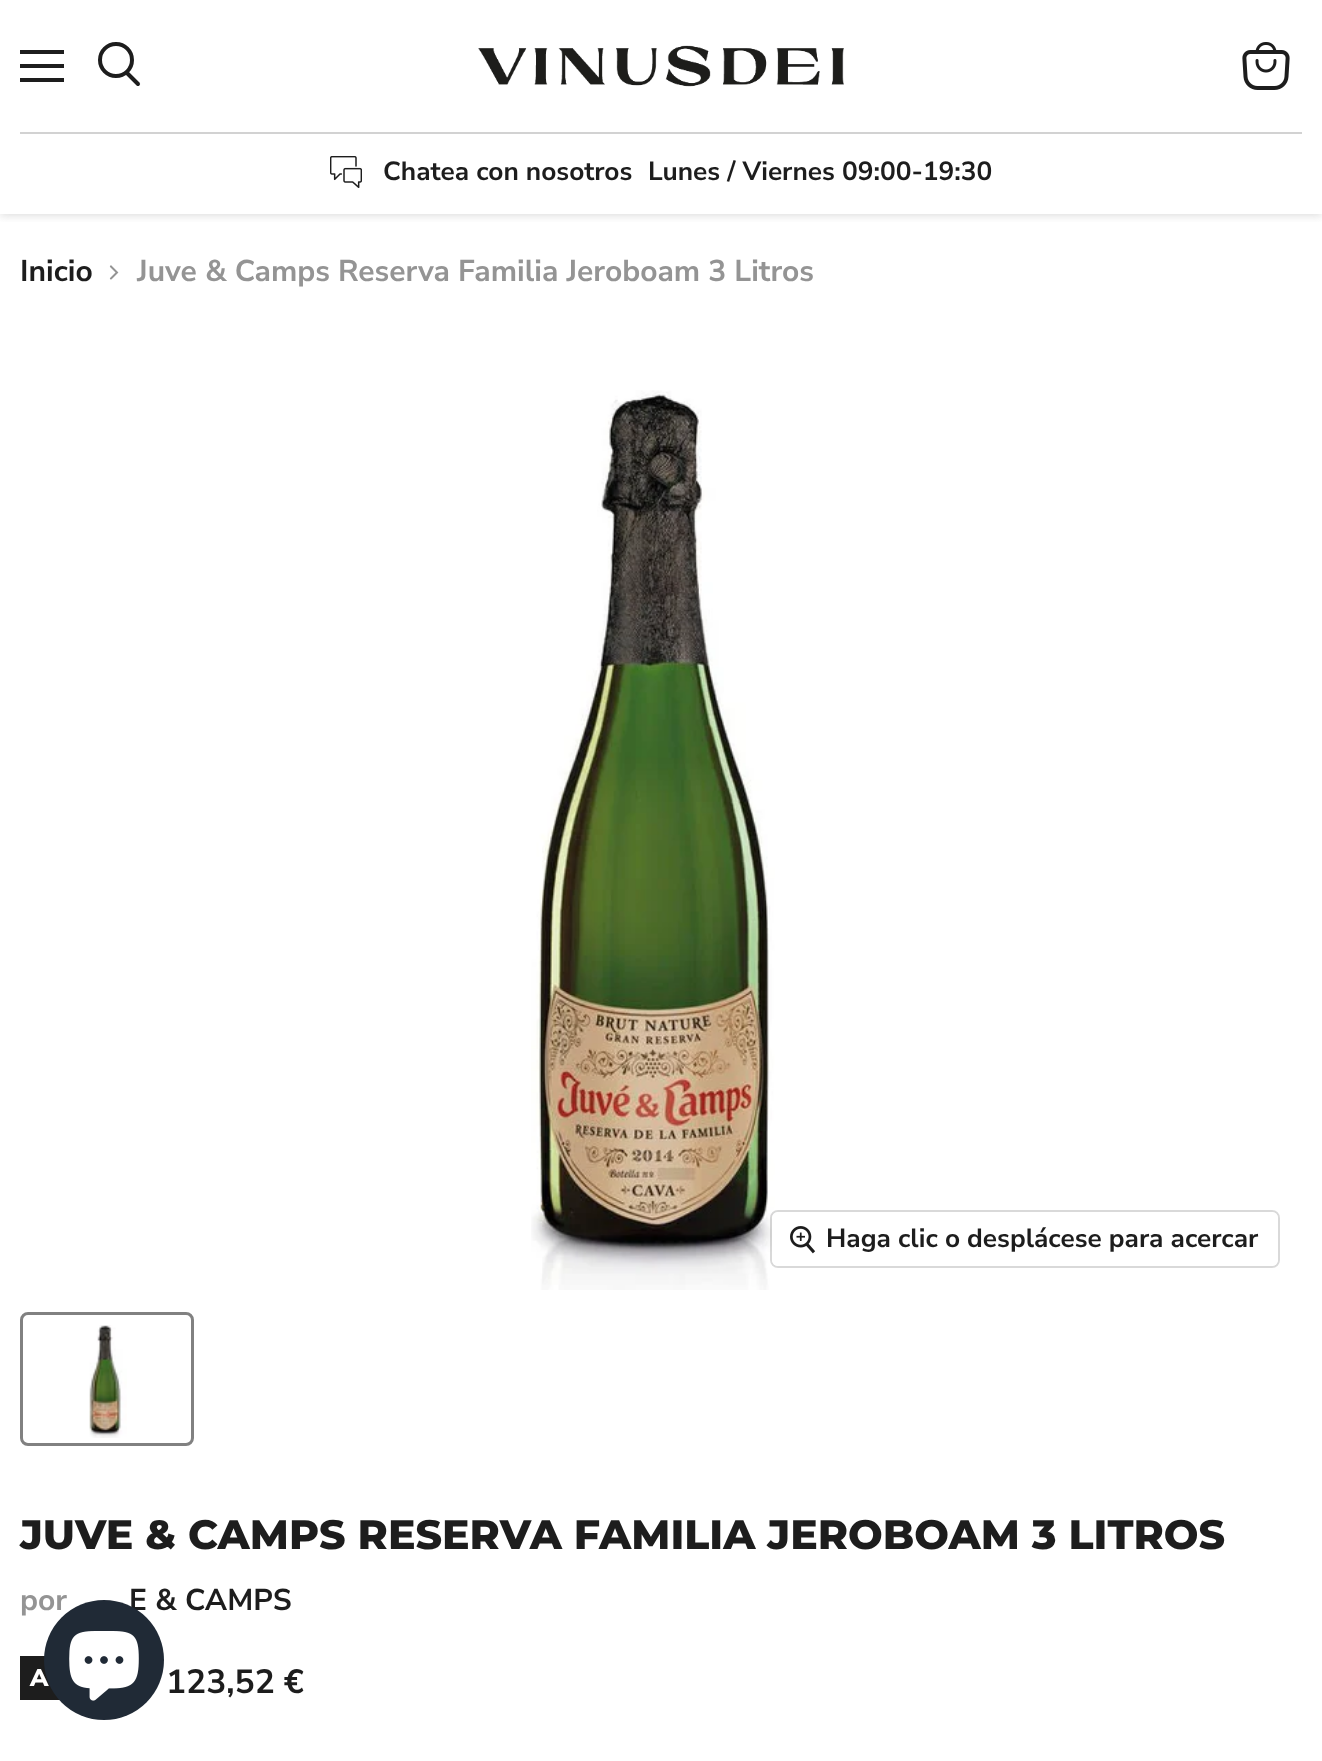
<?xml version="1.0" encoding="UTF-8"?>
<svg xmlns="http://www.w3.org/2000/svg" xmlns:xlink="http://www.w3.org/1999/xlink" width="1322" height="1761">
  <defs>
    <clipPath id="clip1"><rect x="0" y="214" width="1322" height="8" /></clipPath>
  </defs>
  <rect width="100%" height="100%" fill="#ffffff" />
  <g clip-path="url(#clip1)">
    <rect y="2" width="1322" height="214" fill="#808080" fill-opacity="0.25" filter="blur(4px)" />
  </g>
  <rect x="20" y="50" width="44" height="4" fill="#1d1d1d" />
  <rect x="20" y="64" width="44" height="4" fill="#1d1d1d" />
  <rect x="20" y="78" width="44" height="4" fill="#1d1d1d" />
  <path d="M 138 84 l -11 -11" fill="none" stroke="#1d1d1d" stroke-width="4" stroke-linecap="round" />
  <circle cx="116" cy="60" r="16" fill="none" stroke="#1d1d1d" stroke-width="4" />
  <image x="1242" y="42" width="48" height="48" xlink:href="image1.png" />
  <image x="478" y="45" width="366" height="42" xlink:href="image2.png" />
  <rect x="20" y="132" width="1282" height="2" fill="#d2d2d2" />
  <image x="330" y="156" width="32" height="32" xlink:href="image3.png" />
  <image x="109" y="265" width="10" height="15" xlink:href="image4.png" />
  <image x="531" y="390" width="244" height="900" xlink:href="image5.png" />
  <rect x="771" y="1211" width="508" height="56" rx="7" fill="none" stroke="#000000" stroke-opacity="0.15" stroke-width="2" />
  <rect x="772" y="1212" width="506" height="54" rx="6" fill="#ffffff" fill-opacity="0.9" />
  <image x="790" y="1226" width="26" height="28" xlink:href="image6.png" />
  <rect x="21.5" y="1313.5" width="171" height="131" rx="6.5" fill="none" stroke="#818181" stroke-width="3" />
  <image x="89" y="1325" width="38" height="113" xlink:href="image7.png" />
  <rect x="20" y="1656" width="40" height="44" fill="#1d1d1d" />
  <text x="383" y="180" style="font-family: Nunito Sans; font-size: 26.25px; font-weight: bold; fill: #1d1d1d">Chatea con nosotros</text>
  <text x="648" y="180" style="font-family: Nunito Sans; font-size: 26.25px; font-weight: bold; fill: #1d1d1d">Lunes / Viernes 09:00-19:30</text>
  <text x="20" y="281" style="font-family: Nunito Sans; font-size: 30px; font-weight: bold; fill: #1d1d1d">Inicio</text>
  <text x="137" y="281" style="font-family: Nunito Sans; font-size: 30px; font-weight: bold; fill: #949494">Juve &amp; Camps Reserva Familia Jeroboam 3 Litros</text>
  <text x="826" y="1247" style="font-family: Nunito Sans; font-size: 26.25px; font-weight: bold; fill: #1d1d1d">Haga clic o desplácese para acercar</text>
  <text x="20" y="1549" style="font-family: Montserrat; font-size: 41px; font-weight: 800; fill: #1d1d1d">JUVE &amp; CAMPS RESERVA FAMILIA JEROBOAM 3 LITROS</text>
  <text x="20" y="1610" style="font-family: Nunito Sans; font-size: 30px; font-weight: bold; fill: #949494">por</text>
  <text x="129" y="1610" style="font-family: Nunito Sans; font-size: 30px; font-weight: bold; fill: #1d1d1d">E &amp; CAMPS</text>
  <text x="30" y="1686" style="font-family: Nunito Sans; font-size: 24px; font-weight: 900; fill: #ffffff">A</text>
  <text x="166" y="1693" style="font-family: Nunito Sans; font-size: 33.5px; font-weight: bold; fill: #1d1d1d">123,52 €</text>
  <circle cx="104" cy="1660" r="60" fill="#202a36" />
  <image x="69" y="1631" width="70" height="70" xlink:href="image8.png" />
</svg>
